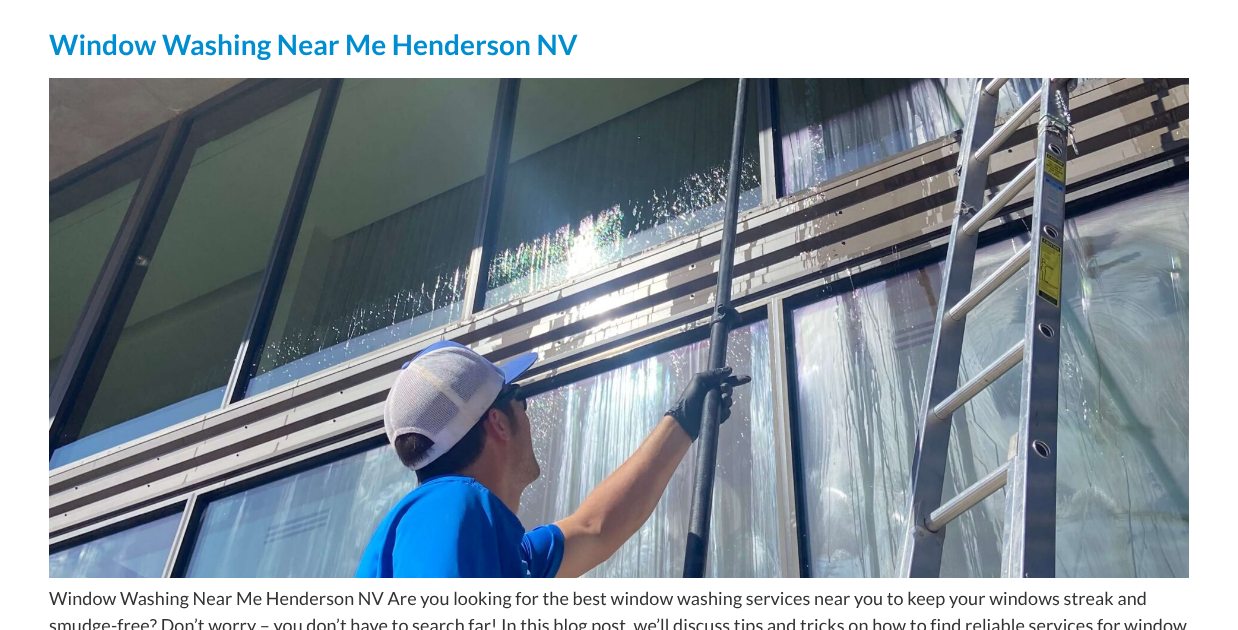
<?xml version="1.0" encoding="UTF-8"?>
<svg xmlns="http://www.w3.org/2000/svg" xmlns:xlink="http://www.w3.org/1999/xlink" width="1238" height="630">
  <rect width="100%" height="100%" fill="#ffffff" />
  <image x="49" y="78" width="1140" height="500" xlink:href="image1.png" />
  <text x="49" y="55" style="font-family: Lato; font-size: 28px; font-weight: bold; letter-spacing: 0.1px; fill: #008ed0">Window Washing Near Me Henderson NV</text>
  <text x="49" y="605" style="font-family: Lato; font-size: 18px; letter-spacing: 0.1px; fill: #333333">Window Washing Near Me Henderson NV Are you looking for the best window washing services near you to keep your windows streak and</text>
  <text x="49" y="632" style="font-family: Lato; font-size: 18px; letter-spacing: 0.1px; fill: #333333">smudge-free? Don’t worry – you don’t have to search far! In this blog post, we’ll discuss tips and tricks on how to find reliable services for window</text>
</svg>
